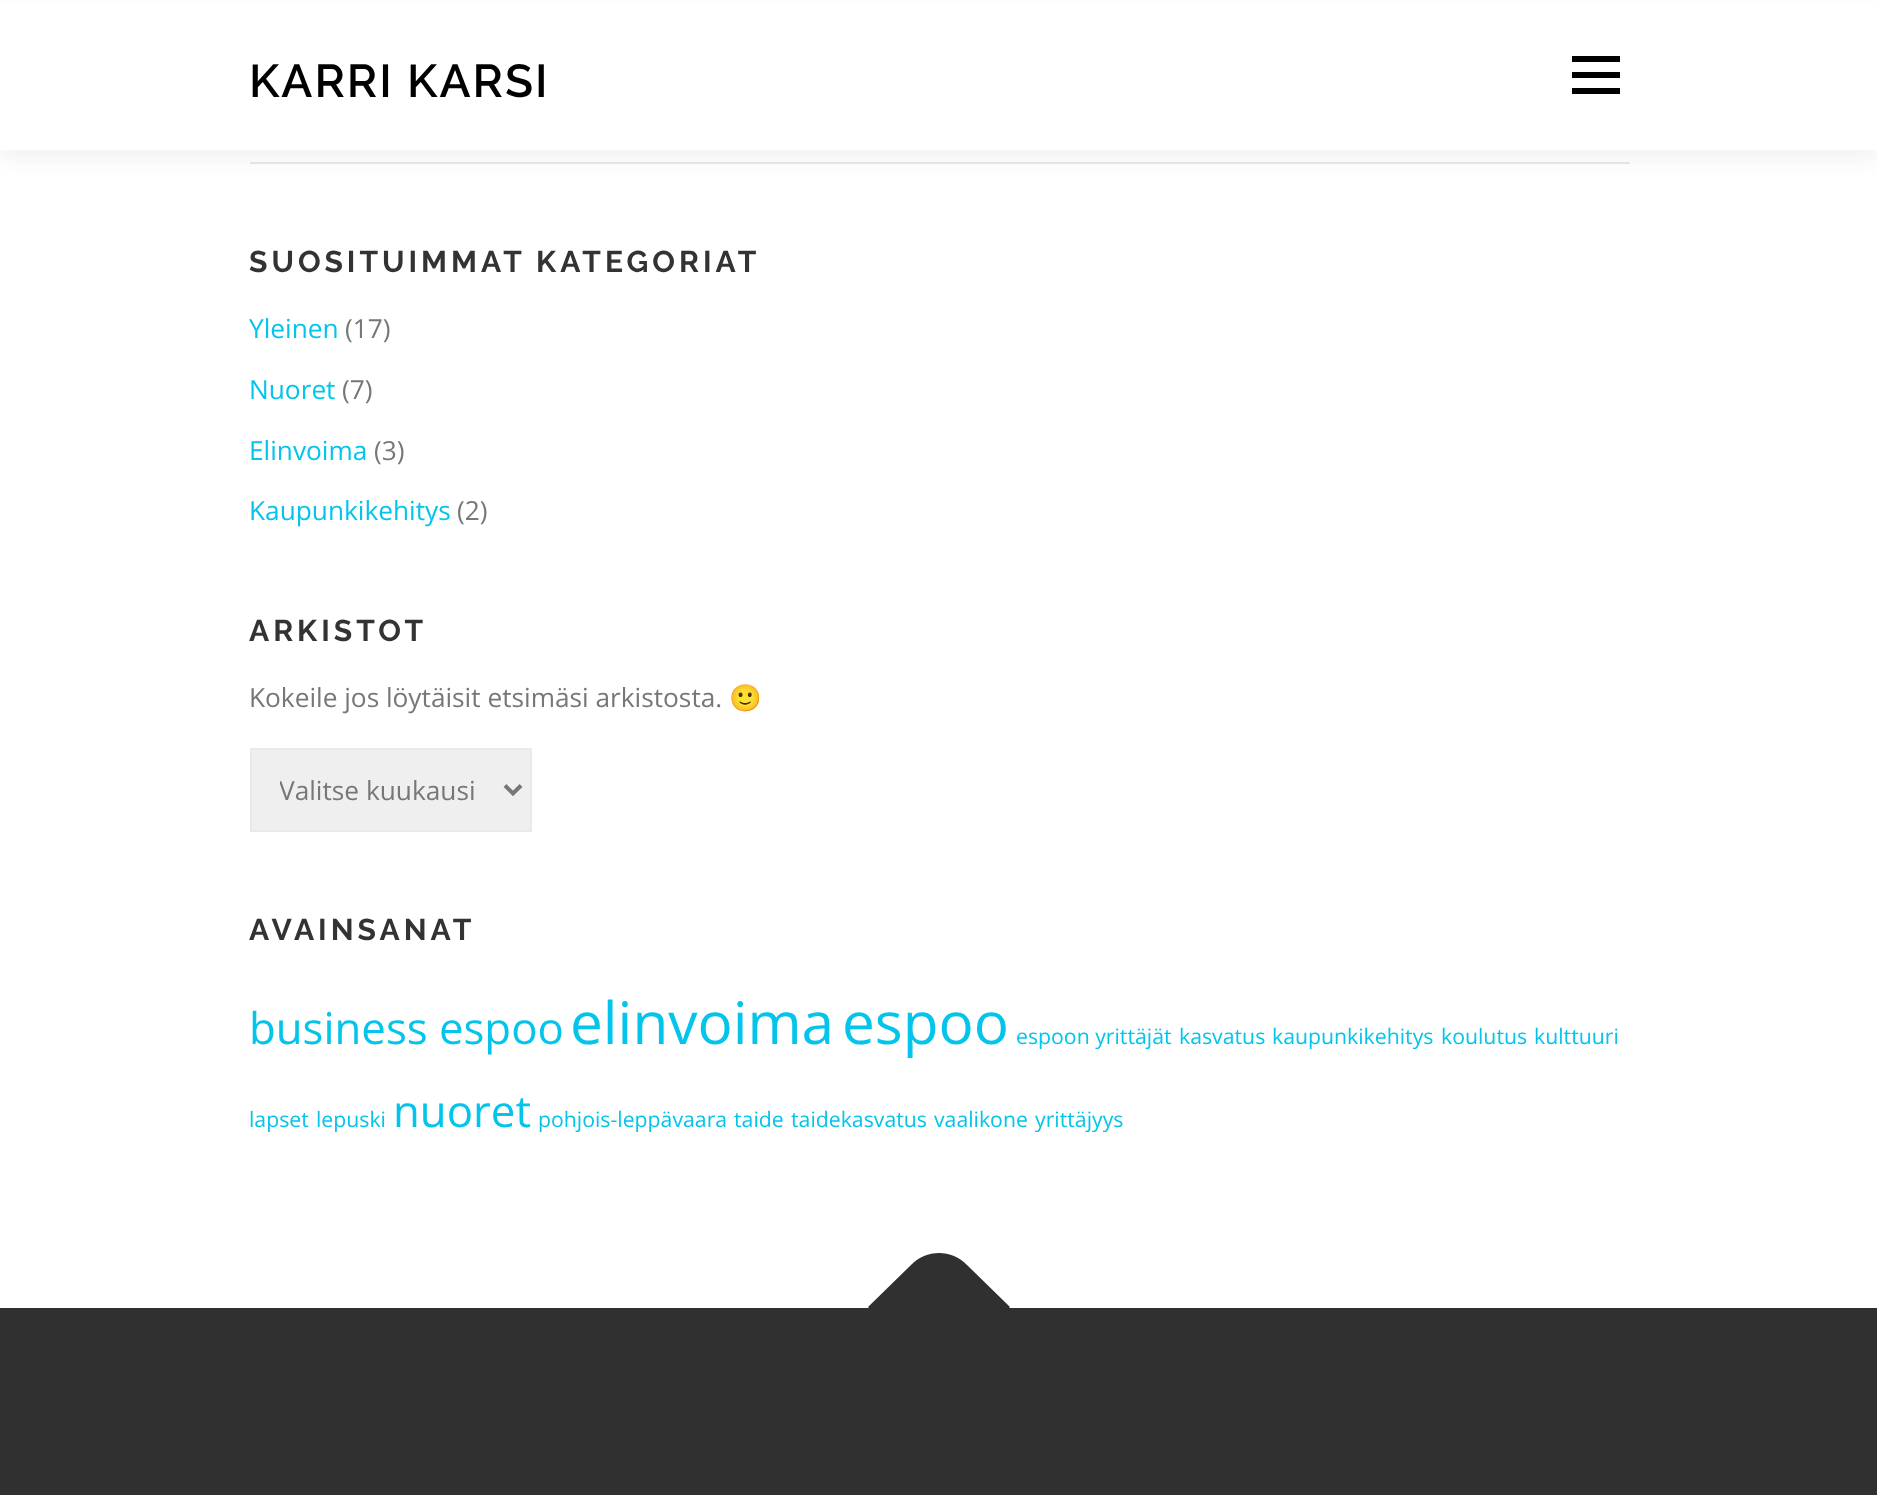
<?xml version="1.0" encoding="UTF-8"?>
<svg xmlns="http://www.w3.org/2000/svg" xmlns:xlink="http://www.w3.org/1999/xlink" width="1877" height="1495">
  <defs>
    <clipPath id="clip1"><rect x="280" y="770" width="198" height="40" /></clipPath>
  </defs>
  <rect width="100%" height="100%" fill="#ffffff" />
  <rect x="250" y="162" width="1380" height="2" fill="#e9e9e9" />
  <rect y="10" width="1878" height="150" fill="#323232" fill-opacity="0.06" filter="blur(10px)" />
  <rect y="2" width="1877" height="148" fill="#ffffff" />
  <rect x="1572" y="72" width="48" height="6" fill="#000000" />
  <rect x="1572" y="56" width="48" height="6" fill="#000000" />
  <rect x="1572" y="88" width="48" height="6" fill="#000000" />
  <rect x="251" y="749" width="280" height="82" fill="#efefef" stroke="#e9e9e9" stroke-width="2" />
  <path d="M 505 785.5 l 8 8 l 8 -8" fill="none" stroke="#777777" stroke-width="4" />
  <rect y="1308" width="1877" height="187" fill="#303030" />
  <path d="M 868 1307 l 43 -42 c 15 -16 41 -16 56 0 l 43 42 l -71 71 z" fill="#303030" />
  <text x="249" y="97" style="font-family: Raleway; font-size: 46px; font-weight: 600; letter-spacing: 2px; fill: #000000">KARRI KARSI</text>
  <text x="249" y="272" style="font-family: Raleway; font-size: 30px; font-weight: bold; letter-spacing: 4px; fill: #333333">SUOSITUIMMAT KATEGORIAT</text>
  <text x="249" y="338" style="font-family: Open Sans; font-size: 26.25px; fill: #03c4eb">Yleinen</text>
  <text x="345" y="338" style="font-family: Open Sans; font-size: 26.25px; fill: #777777">(17)</text>
  <text x="249" y="399" style="font-family: Open Sans; font-size: 26.25px; fill: #03c4eb">Nuoret</text>
  <text x="342" y="399" style="font-family: Open Sans; font-size: 26.25px; fill: #777777">(7)</text>
  <text x="249" y="460" style="font-family: Open Sans; font-size: 26.25px; fill: #03c4eb">Elinvoima</text>
  <text x="374" y="460" style="font-family: Open Sans; font-size: 26.25px; fill: #777777">(3)</text>
  <text x="249" y="520" style="font-family: Open Sans; font-size: 26.25px; fill: #03c4eb">Kaupunkikehitys</text>
  <text x="457" y="520" style="font-family: Open Sans; font-size: 26.25px; fill: #777777">(2)</text>
  <text x="249" y="641" style="font-family: Raleway; font-size: 30px; font-weight: bold; letter-spacing: 4px; fill: #333333">ARKISTOT</text>
  <text x="249" y="707" style="font-family: Open Sans; font-size: 26.25px; fill: #777777">Kokeile jos löytäisit etsimäsi arkistosta.</text>
  <text x="729" y="707" style="font-family: Noto Color Emoji; font-size: 26.25px; fill: #777777">🙂</text>
  <g clip-path="url(#clip1)">
    <text x="279" y="800" style="font-family: Open Sans; font-size: 26.25px; fill: #777777">Valitse kuukausi</text>
  </g>
  <text x="249" y="940" style="font-family: Raleway; font-size: 30px; font-weight: bold; letter-spacing: 4px; fill: #333333">AVAINSANAT</text>
  <text x="249" y="1044" style="font-family: Open Sans; font-size: 43.75px; fill: #03c4eb">business espoo</text>
  <text x="570" y="1044" style="font-family: Open Sans; font-size: 58.5px; fill: #03c4eb">elinvoima</text>
  <text x="842" y="1044" style="font-family: Open Sans; font-size: 58.5px; fill: #03c4eb">espoo</text>
  <text x="1016" y="1044" style="font-family: Open Sans; font-size: 21.25px; fill: #03c4eb">espoon yrittäjät</text>
  <text x="1179" y="1044" style="font-family: Open Sans; font-size: 21.25px; fill: #03c4eb">kasvatus</text>
  <text x="1272" y="1044" style="font-family: Open Sans; font-size: 21.25px; fill: #03c4eb">kaupunkikehitys</text>
  <text x="1441" y="1044" style="font-family: Open Sans; font-size: 21.25px; fill: #03c4eb">koulutus</text>
  <text x="1534" y="1044" style="font-family: Open Sans; font-size: 21.25px; fill: #03c4eb">kulttuuri</text>
  <text x="249" y="1127" style="font-family: Open Sans; font-size: 21.25px; fill: #03c4eb">lapset</text>
  <text x="316" y="1127" style="font-family: Open Sans; font-size: 21.25px; fill: #03c4eb">lepuski</text>
  <text x="393" y="1127" style="font-family: Open Sans; font-size: 43.75px; fill: #03c4eb">nuoret</text>
  <text x="538" y="1127" style="font-family: Open Sans; font-size: 21.25px; fill: #03c4eb">pohjois-leppävaara</text>
  <text x="734" y="1127" style="font-family: Open Sans; font-size: 21.25px; fill: #03c4eb">taide</text>
  <text x="791" y="1127" style="font-family: Open Sans; font-size: 21.25px; fill: #03c4eb">taidekasvatus</text>
  <text x="934" y="1127" style="font-family: Open Sans; font-size: 21.25px; fill: #03c4eb">vaalikone</text>
  <text x="1035" y="1127" style="font-family: Open Sans; font-size: 21.25px; fill: #03c4eb">yrittäjyys</text>
</svg>
